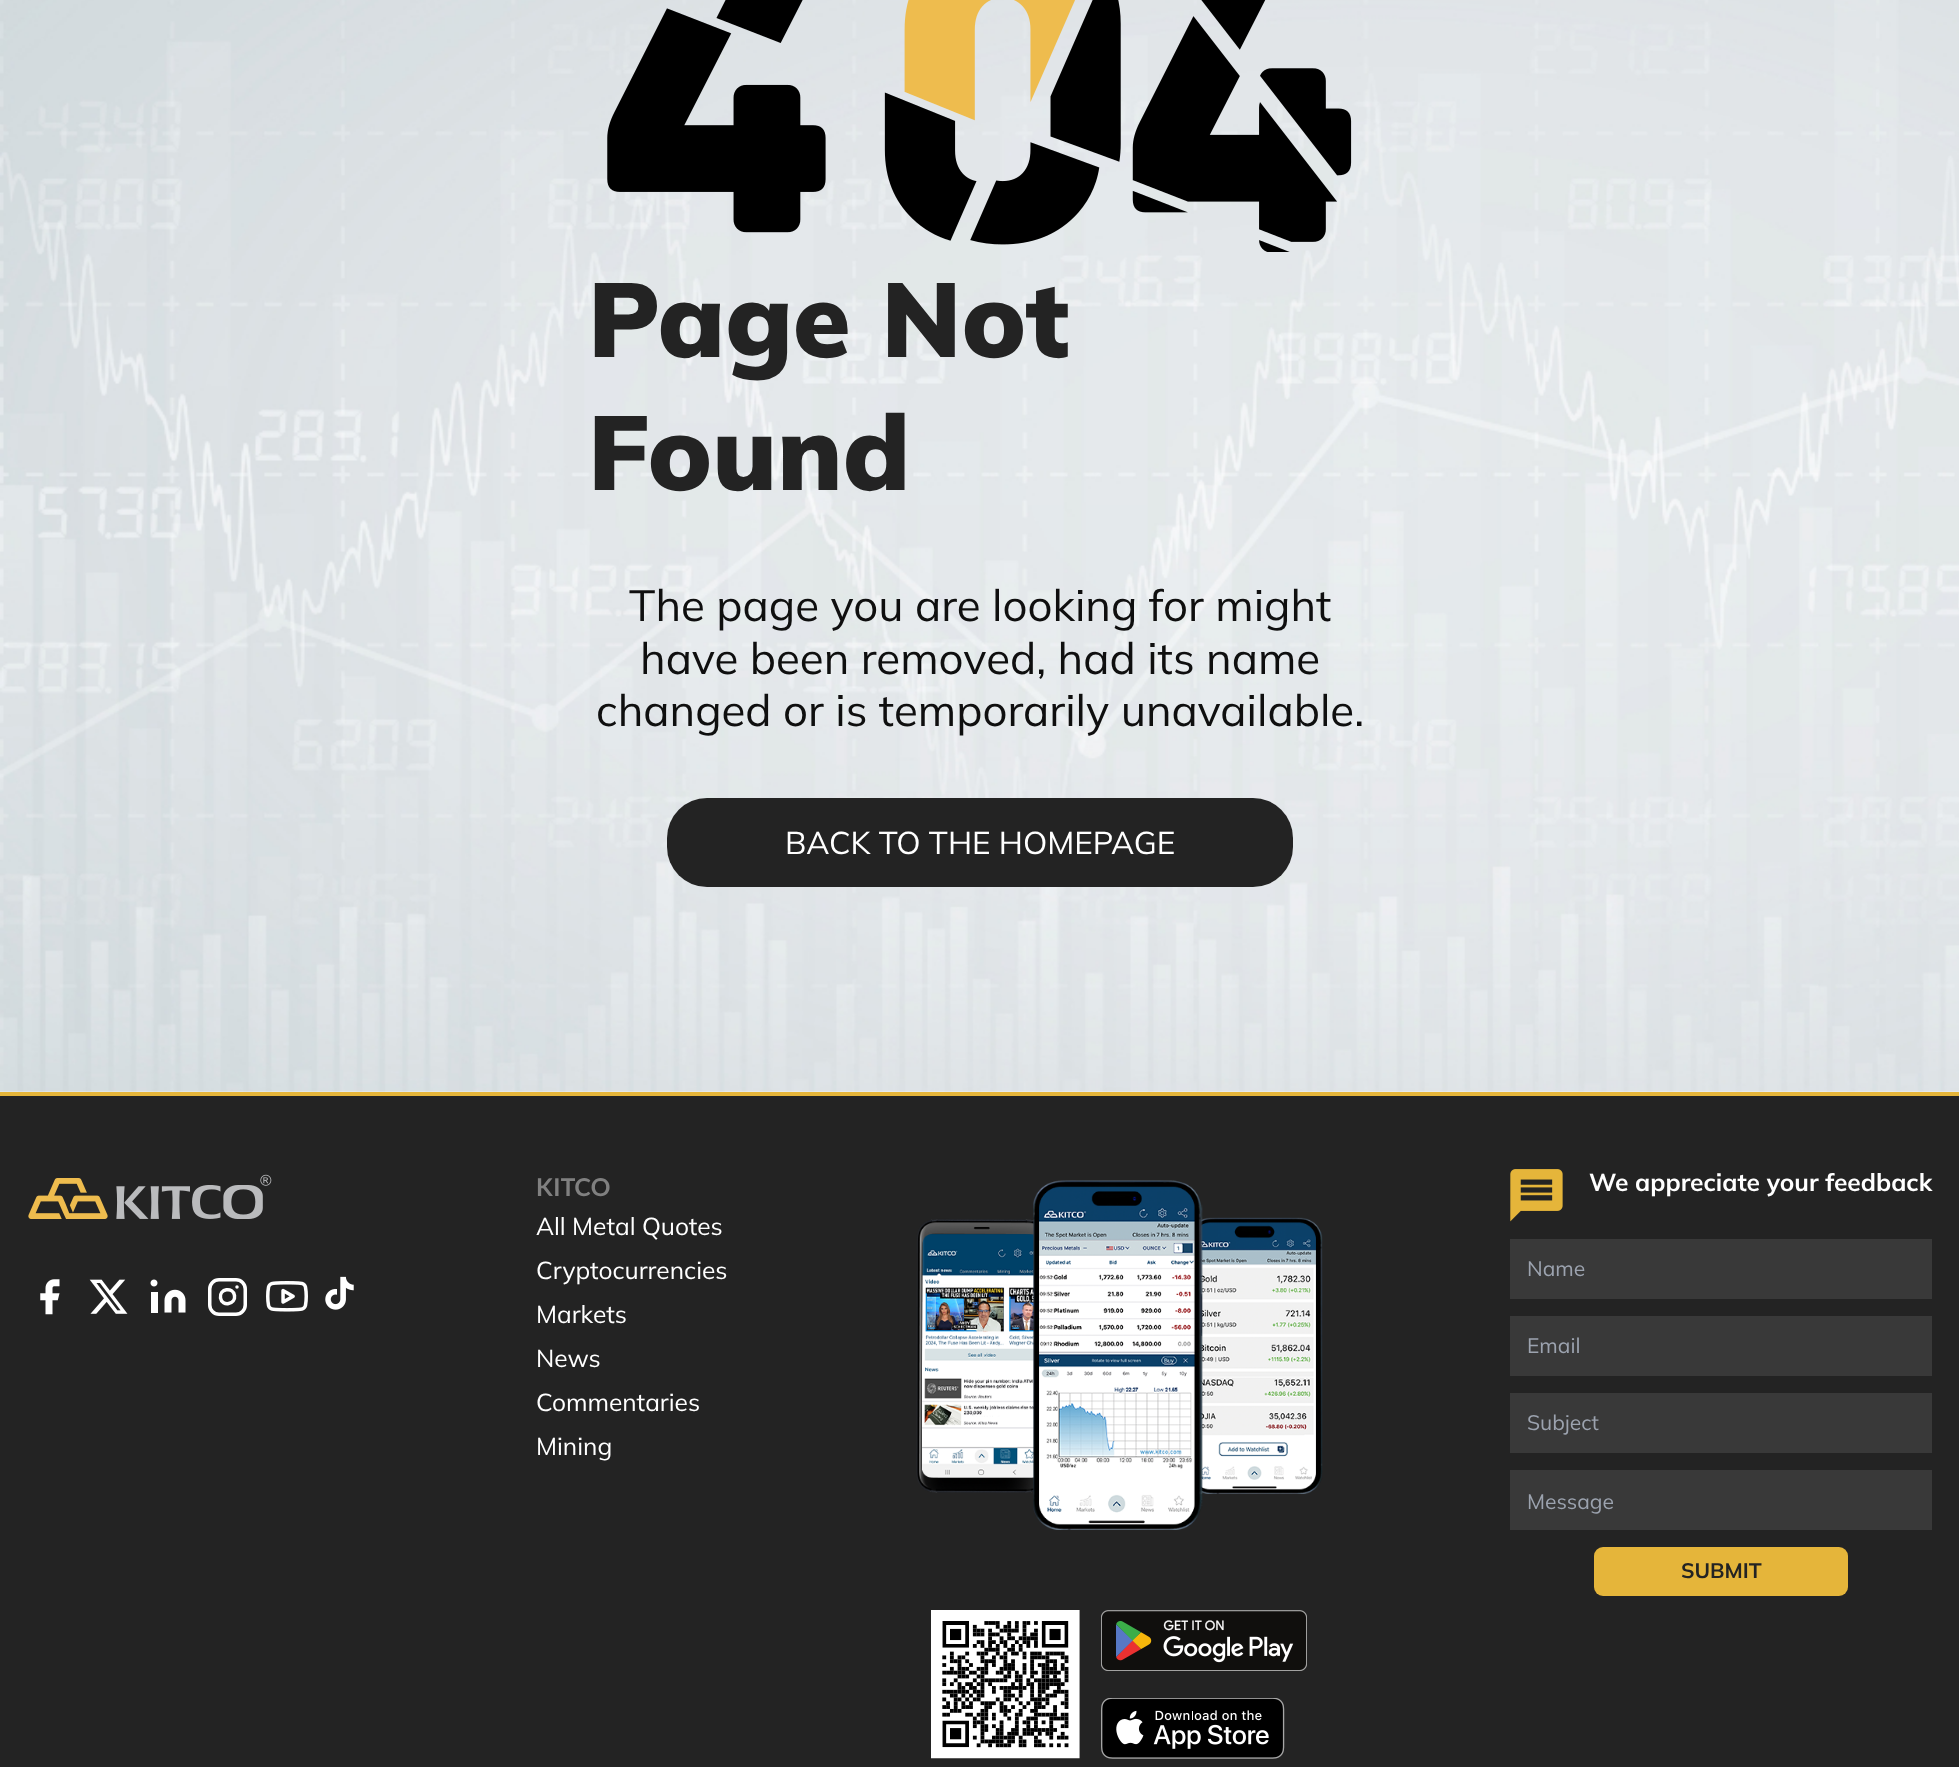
<?xml version="1.0" encoding="UTF-8"?>
<svg xmlns="http://www.w3.org/2000/svg" xmlns:xlink="http://www.w3.org/1999/xlink" width="1959" height="1767">
  <rect width="100%" height="100%" fill="#ffffff" />
  <image x="0" y="0" width="1959" height="1092" xlink:href="image1.png" />
  <image x="607" y="0" width="745" height="252" xlink:href="image2.png" />
  <rect x="667" y="798" width="626" height="89" rx="40" fill="#232323" />
  <rect y="1096" width="1959" height="671" fill="#232323" />
  <rect y="1092" width="1959" height="4" fill="#e5b53a" />
  <image x="28" y="1174" width="244" height="45" xlink:href="image3.png" />
  <image x="40" y="1279" width="20" height="36" xlink:href="image4.png" />
  <image x="89" y="1279" width="39" height="35" xlink:href="image5.png" />
  <image x="150" y="1279" width="36" height="34" xlink:href="image6.png" />
  <rect x="209.75" y="1279.75" width="35.5" height="34.5" rx="9.25" fill="none" stroke="#ffffff" stroke-width="3.5" />
  <path d="M 234.5 1295.5 c 1.5 9 -12.5 11.5 -14 2.5 c -1.5 -9.5 12.5 -11.5 14 -2.5 z m 2.5 -8.5 h 0" fill="none" stroke="#ffffff" stroke-width="3.5" stroke-linecap="round" stroke-linejoin="round" />
  <image x="266" y="1281" width="42" height="31" xlink:href="image7.png" />
  <image x="325" y="1276" width="29" height="34" xlink:href="image8.png" />
  <image x="916" y="1180" width="407" height="350" xlink:href="image9.png" />
  <image x="931" y="1610" width="149" height="149" xlink:href="image10.png" />
  <image x="1101" y="1610" width="206" height="61" xlink:href="image11.png" />
  <image x="1101" y="1698" width="184" height="61" xlink:href="image12.png" />
  <image x="1510" y="1169" width="53" height="53" xlink:href="image13.png" />
  <rect x="1510" y="1239" width="422" height="60" fill="#393939" />
  <rect x="1510" y="1316" width="422" height="60" fill="#393939" />
  <rect x="1510" y="1393" width="422" height="60" fill="#393939" />
  <rect x="1510" y="1470" width="422" height="60" fill="#393939" />
  <rect x="1594" y="1547" width="254" height="49" rx="9" fill="#e5b53a" />
  <text x="588" y="357" style="font-family: Mulish; font-size: 105px; font-weight: 900; fill: #232323">Page Not</text>
  <text x="588" y="490" style="font-family: Mulish; font-size: 105px; font-weight: 900; fill: #232323">Found</text>
  <text x="629" y="621" style="font-family: Mulish; font-size: 43.75px; fill: #0f0f0f">The page you are looking for might</text>
  <text x="640" y="674" style="font-family: Mulish; font-size: 43.75px; fill: #0f0f0f">have been removed, had its name</text>
  <text x="596" y="726" style="font-family: Mulish; font-size: 43.75px; fill: #0f0f0f">changed or is temporarily unavailable.</text>
  <text x="785" y="854" style="font-family: Mulish; font-size: 31.5px; fill: #ffffff">BACK TO THE HOMEPAGE</text>
  <text x="536" y="1196" style="font-family: Lato; font-size: 24.5px; font-weight: bold; fill: #808080">KITCO</text>
  <text x="536" y="1235" style="font-family: Mulish; font-size: 24.5px; fill: #ffffff">All Metal Quotes</text>
  <text x="536" y="1279" style="font-family: Mulish; font-size: 24.5px; fill: #ffffff">Cryptocurrencies</text>
  <text x="536" y="1323" style="font-family: Mulish; font-size: 24.5px; fill: #ffffff">Markets</text>
  <text x="536" y="1367" style="font-family: Mulish; font-size: 24.5px; fill: #ffffff">News</text>
  <text x="536" y="1411" style="font-family: Mulish; font-size: 24.5px; fill: #ffffff">Commentaries</text>
  <text x="536" y="1455" style="font-family: Mulish; font-size: 24.5px; fill: #ffffff">Mining</text>
  <text x="1589" y="1191" style="font-family: Mulish; font-size: 24.5px; font-weight: bold; fill: #ffffff">We appreciate your feedback</text>
  <text x="1527" y="1276" style="font-family: Mulish; font-size: 21px; fill: #9ca3af">Name</text>
  <text x="1527" y="1353" style="font-family: Mulish; font-size: 21px; fill: #9ca3af">Email</text>
  <text x="1527" y="1430" style="font-family: Mulish; font-size: 21px; fill: #9ca3af">Subject</text>
  <text x="1527" y="1509" style="font-family: Mulish; font-size: 21px; fill: #9ca3af">Message</text>
  <text x="1681" y="1578" style="font-family: Mulish; font-size: 21px; font-weight: bold; fill: #232323">SUBMIT</text>
</svg>
